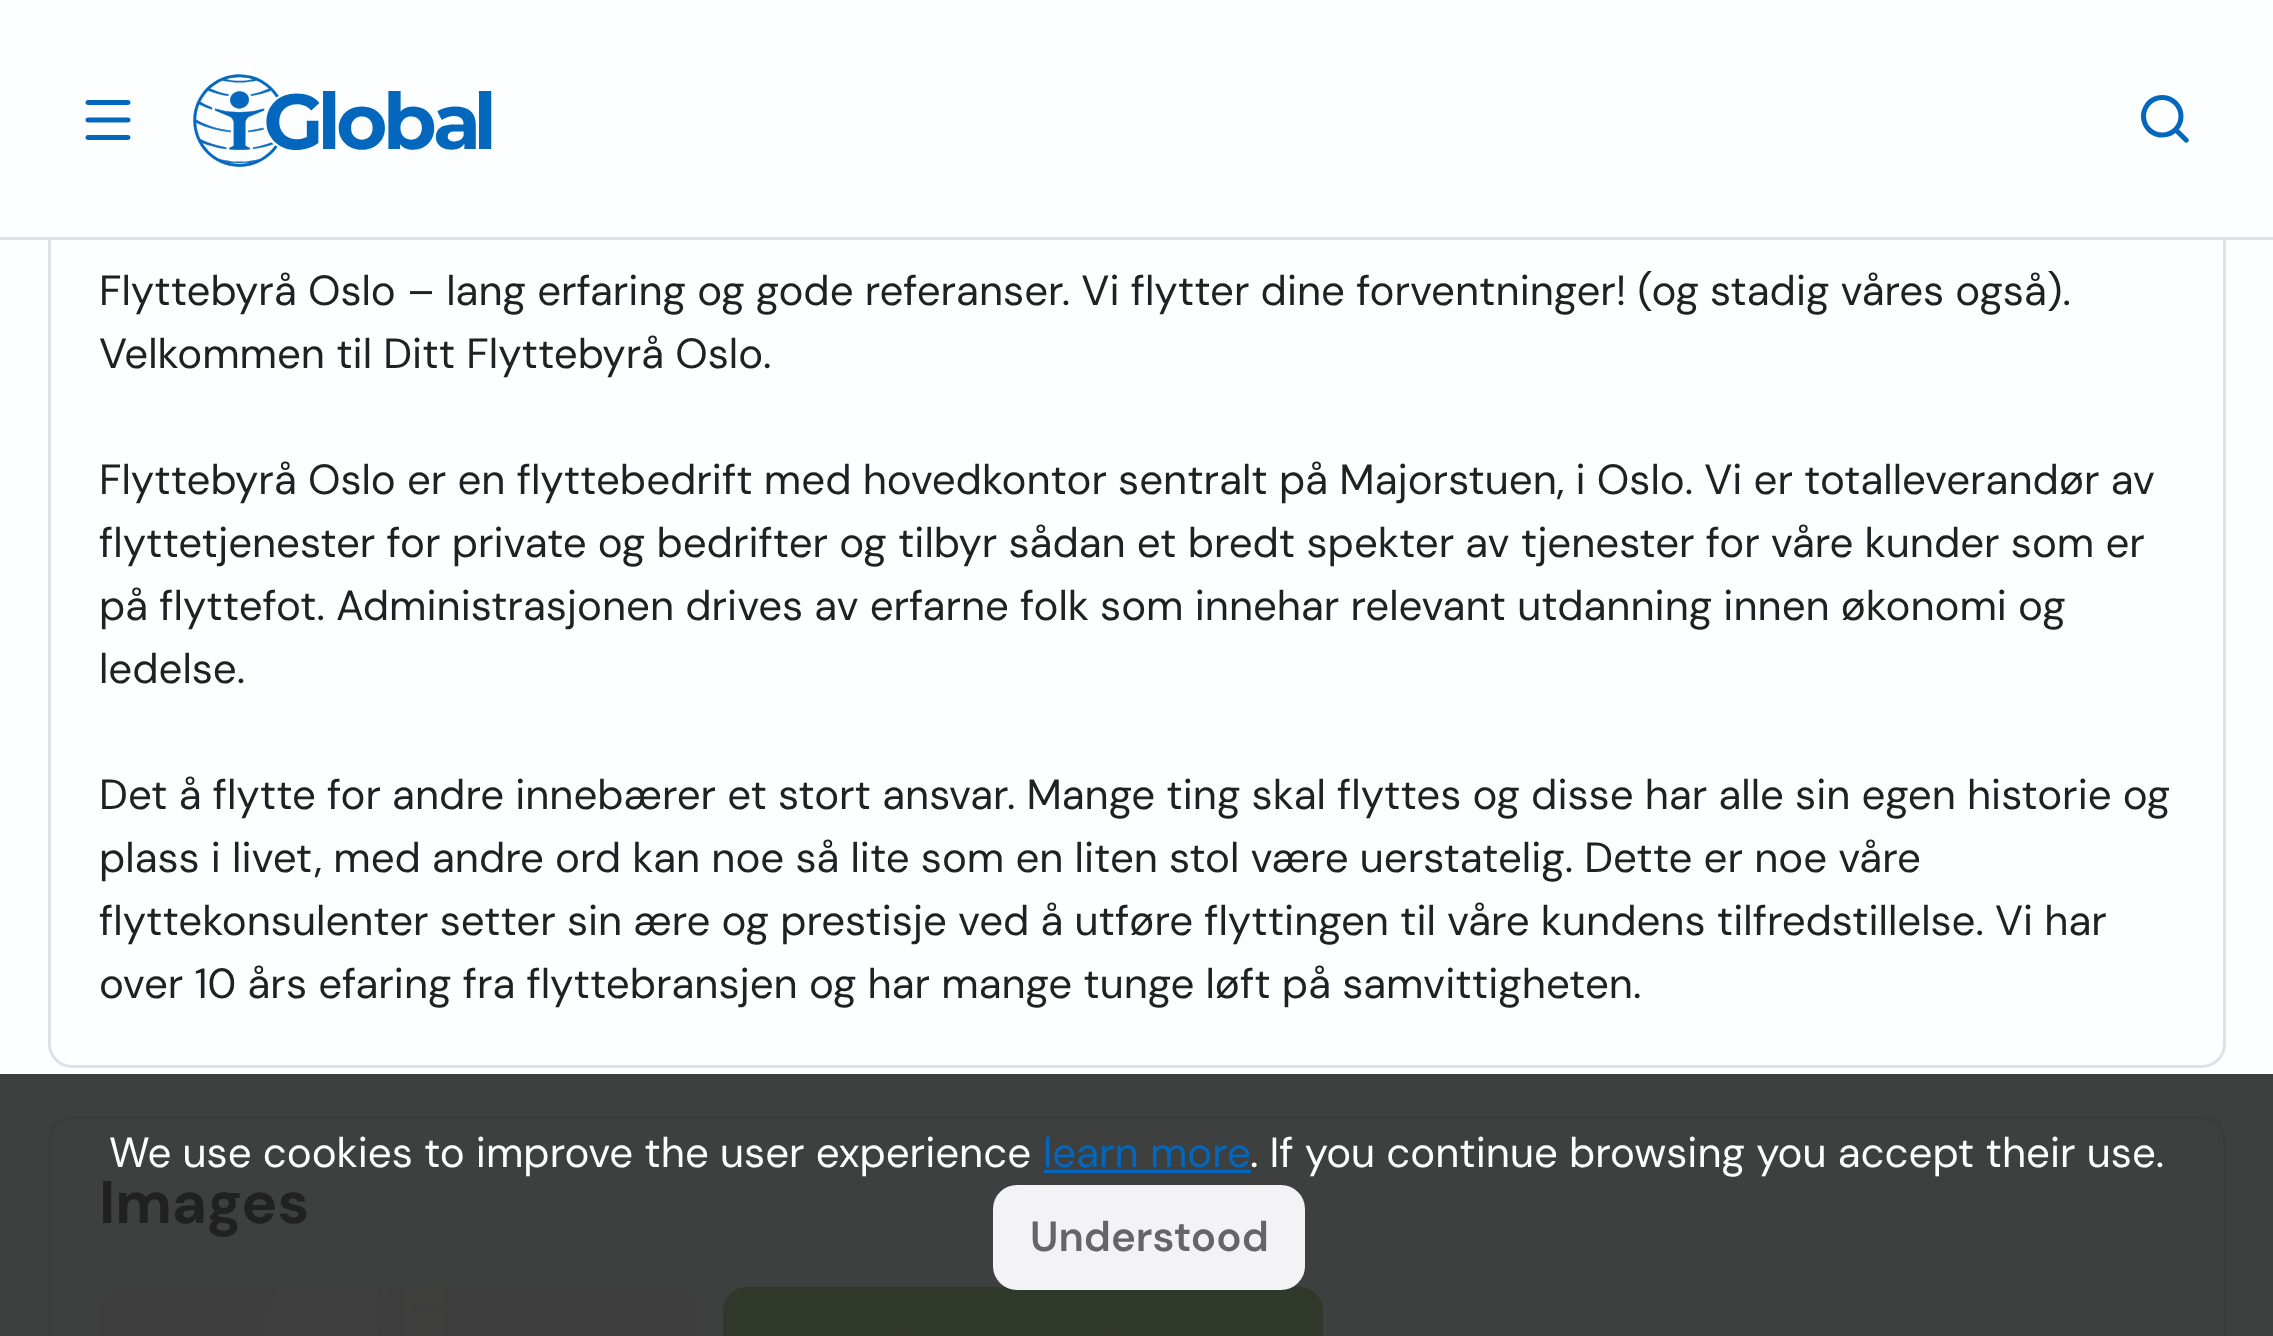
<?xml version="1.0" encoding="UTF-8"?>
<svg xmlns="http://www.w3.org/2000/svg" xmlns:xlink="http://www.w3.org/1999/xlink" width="2273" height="1336">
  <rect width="100%" height="100%" fill="#fcfeff" />
  <rect y="1074" width="2273" height="262" fill="#3e3f3f" />
  <rect x="49.5" y="-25.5" width="2175" height="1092" rx="22.5" fill="none" stroke="#e1e1e5" stroke-width="3" />
  <rect x="48" width="2178" height="237" fill="#fcfeff" />
  <rect y="237" width="2273" height="3" fill="#e1e1e5" />
  <image x="85" y="100" width="46" height="40" xlink:href="image1.png" />
  <image x="193" y="74" width="299" height="93" xlink:href="image2.png" />
  <image x="2141" y="95" width="48" height="48" xlink:href="image3.png" />
  <rect x="49.5" y="1117.5" width="2175" height="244" rx="22.5" fill="none" stroke="#3b3b3b" stroke-width="3" />
  <image x="99" y="1287" width="600" height="49" xlink:href="image4.png" />
  <image x="723" y="1287" width="600" height="49" xlink:href="image5.png" />
  <rect x="1044" y="1170" width="207" height="3" fill="#0367bd" />
  <rect x="993" y="1185" width="312" height="105" rx="24" fill="#f3f3f5" />
  <text x="99" y="305" style="font-family: DM Sans; font-size: 42px; fill: #212121">Flyttebyrå Oslo – lang erfaring og gode referanser. Vi flytter dine forventninger! (og stadig våres også).</text>
  <text x="99" y="368" style="font-family: DM Sans; font-size: 42px; fill: #212121">Velkommen til Ditt Flyttebyrå Oslo.</text>
  <text x="99" y="494" style="font-family: DM Sans; font-size: 42px; fill: #212121">Flyttebyrå Oslo er en flyttebedrift med hovedkontor sentralt på Majorstuen, i Oslo. Vi er totalleverandør av</text>
  <text x="99" y="557" style="font-family: DM Sans; font-size: 42px; fill: #212121">flyttetjenester for private og bedrifter og tilbyr sådan et bredt spekter av tjenester for våre kunder som er</text>
  <text x="99" y="620" style="font-family: DM Sans; font-size: 42px; fill: #212121">på flyttefot. Administrasjonen drives av erfarne folk som innehar relevant utdanning innen økonomi og</text>
  <text x="99" y="683" style="font-family: DM Sans; font-size: 42px; fill: #212121">ledelse.</text>
  <text x="99" y="809" style="font-family: DM Sans; font-size: 42px; fill: #212121">Det å flytte for andre innebærer et stort ansvar. Mange ting skal flyttes og disse har alle sin egen historie og</text>
  <text x="99" y="872" style="font-family: DM Sans; font-size: 42px; fill: #212121">plass i livet, med andre ord kan noe så lite som en liten stol være uerstatelig. Dette er noe våre</text>
  <text x="99" y="935" style="font-family: DM Sans; font-size: 42px; fill: #212121">flyttekonsulenter setter sin ære og prestisje ved å utføre flyttingen til våre kundens tilfredstillelse. Vi har</text>
  <text x="99" y="998" style="font-family: DM Sans; font-size: 42px; fill: #212121">over 10 års efaring fra flyttebransjen og har mange tunge løft på samvittigheten.</text>
  <text x="99" y="1223" style="font-family: DM Sans; font-size: 60px; font-weight: bold; fill: #212121">Images</text>
  <text x="109" y="1167" style="font-family: DM Sans; font-size: 42px; fill: #ffffff">We use cookies to improve the user experience</text>
  <text x="1043" y="1167" style="font-family: DM Sans; font-size: 42px; fill: #0367bd">learn more</text>
  <text x="1250" y="1167" style="font-family: DM Sans; font-size: 42px; fill: #ffffff">. If you continue browsing you accept their use.</text>
  <text x="1030" y="1251" style="font-family: DM Sans; font-size: 42px; font-weight: 600; fill: #656566">Understood</text>
</svg>
